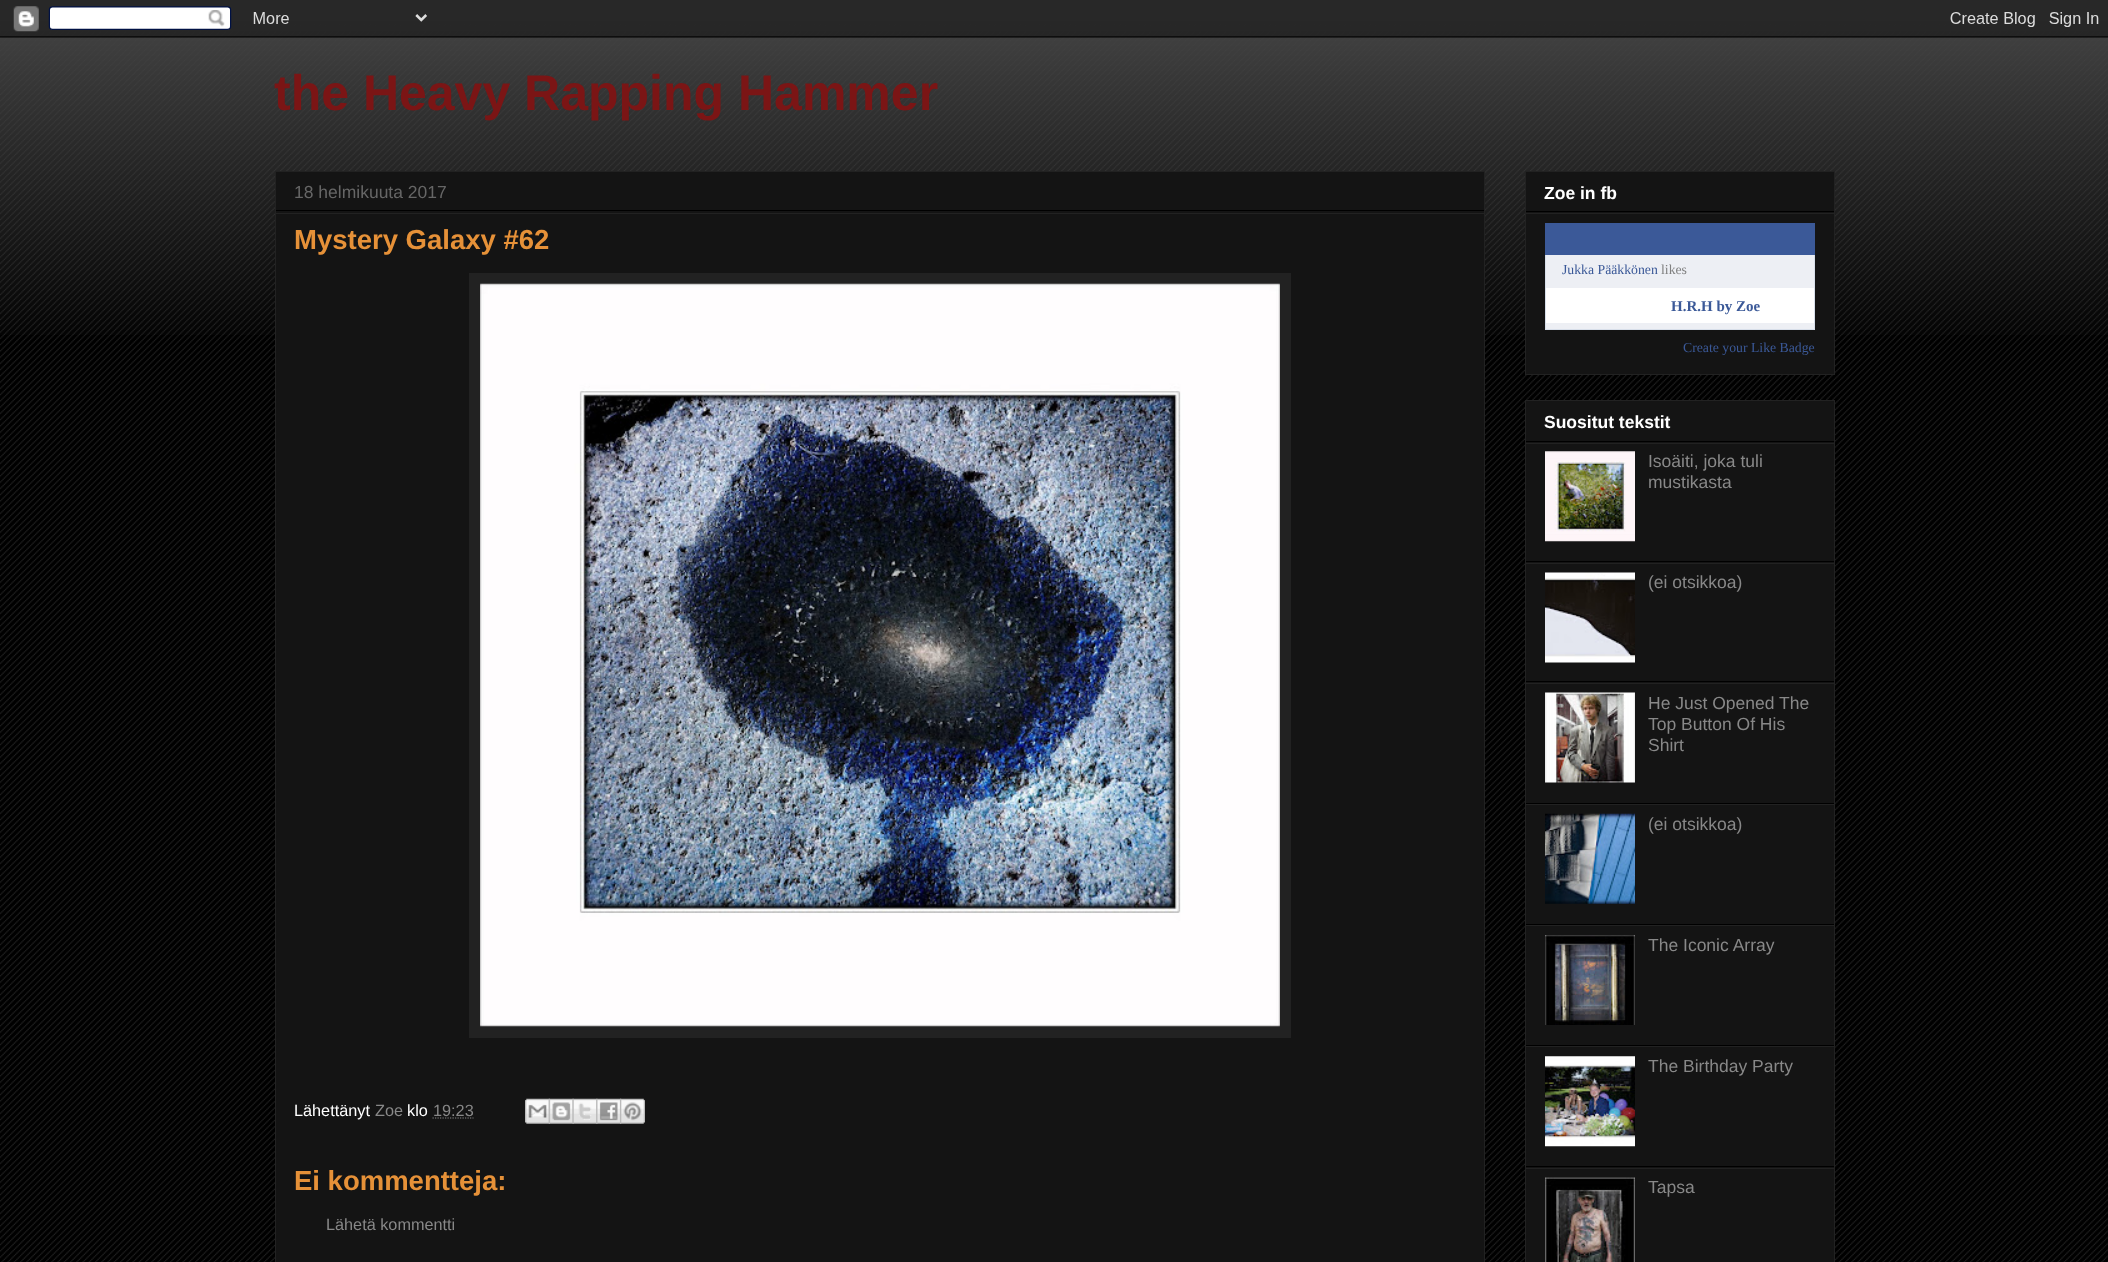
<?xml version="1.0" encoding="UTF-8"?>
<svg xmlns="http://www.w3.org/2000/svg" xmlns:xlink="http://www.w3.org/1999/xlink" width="2108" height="1262">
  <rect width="100%" height="100%" fill="#000000" />
  <image x="0" y="16" width="2108" height="1246" xlink:href="image1.png" />
  <image x="0" y="0" width="2108" height="335" xlink:href="image2.png" />
  <image x="0" y="0" width="2108" height="38" xlink:href="image3.png" />
  <rect x="275.5" y="171.5" width="1209" height="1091" fill="#141414" stroke="#222222" />
  <rect x="276" y="210" width="1208" height="1" fill="#000000" />
  <rect x="276" y="213" width="1208" height="1" fill="#222222" />
  <rect x="469" y="273" width="822" height="765" fill="#222222" />
  <image x="480" y="283" width="800" height="744" xlink:href="image4.png" />
  <path d="M 432.5 1118 h 41" fill="none" stroke="#888888" stroke-width="1.2" stroke-dasharray="1.25 1.25" />
  <image x="525" y="1098" width="25" height="26" xlink:href="image5.png" />
  <image x="548" y="1098" width="26" height="26" xlink:href="image6.png" />
  <image x="572" y="1098" width="26" height="26" xlink:href="image7.png" />
  <image x="596" y="1098" width="26" height="26" xlink:href="image8.png" />
  <image x="620" y="1098" width="25" height="26" xlink:href="image9.png" />
  <rect x="1525.5" y="171.5" width="309" height="203" fill="#141414" stroke="#222222" />
  <rect x="1526" y="211" width="308" height="1" fill="#000000" />
  <rect x="1526" y="213" width="308" height="1" fill="#222222" />
  <rect x="1545" y="223" width="270" height="32" fill="#3b5998" />
  <rect x="1546" y="255" width="268" height="74" fill="#edeff4" />
  <rect x="1814" y="255" width="1" height="75" fill="#d8dfea" />
  <rect x="1545" y="329" width="270" height="1" fill="#d8dfea" />
  <rect x="1545" y="255" width="1" height="75" fill="#d8dfea" />
  <rect x="1546" y="288" width="268" height="35" fill="#ffffff" />
  <rect x="1525.5" y="400.5" width="309" height="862" fill="#141414" stroke="#222222" />
  <rect x="1526" y="441" width="308" height="1" fill="#000000" />
  <rect x="1526" y="443" width="308" height="1" fill="#222222" />
  <rect x="1526" y="561" width="308" height="1" fill="#000000" />
  <image x="1545" y="451" width="90" height="91" xlink:href="image10.png" />
  <rect x="1526" y="563" width="308" height="1" fill="#222222" />
  <rect x="1526" y="681" width="308" height="1" fill="#000000" />
  <image x="1545" y="572" width="90" height="91" xlink:href="image11.png" />
  <rect x="1526" y="683" width="308" height="1" fill="#222222" />
  <rect x="1526" y="803" width="308" height="1" fill="#000000" />
  <image x="1545" y="692" width="90" height="91" xlink:href="image12.png" />
  <rect x="1526" y="804" width="308" height="1" fill="#222222" />
  <rect x="1526" y="924" width="308" height="1" fill="#000000" />
  <image x="1545" y="813" width="90" height="91" xlink:href="image13.png" />
  <rect x="1526" y="925" width="308" height="1" fill="#222222" />
  <rect x="1526" y="1045" width="308" height="1" fill="#000000" />
  <image x="1545" y="935" width="90" height="90" xlink:href="image14.png" />
  <rect x="1526" y="1046" width="308" height="1" fill="#222222" />
  <rect x="1526" y="1166" width="308" height="1" fill="#000000" />
  <image x="1545" y="1056" width="90" height="91" xlink:href="image15.png" />
  <rect x="1526" y="1168" width="308" height="1" fill="#222222" />
  <image x="1545" y="1177" width="90" height="85" xlink:href="image16.png" />
  <text x="274" y="110" style="font-family: Liberation Sans; font-size: 50px; font-weight: bold; fill: #7b1515">the Heavy Rapping Hammer</text>
  <text x="294" y="198" style="font-family: Liberation Sans; font-size: 17.5px; fill: #666666">18 helmikuuta 2017</text>
  <text x="294" y="249" style="font-family: Liberation Sans; font-size: 27.5px; font-weight: bold; fill: #e69138">Mystery Galaxy #62</text>
  <text x="294" y="1116" style="font-family: Liberation Sans; font-size: 16.25px; fill: #ffffff">Lähettänyt</text>
  <text x="375" y="1116" style="font-family: Liberation Sans; font-size: 16.25px; fill: #888888">Zoe</text>
  <text x="407" y="1116" style="font-family: Liberation Sans; font-size: 16.25px; fill: #ffffff">klo</text>
  <text x="433" y="1116" style="font-family: Liberation Sans; font-size: 16.25px; fill: #888888">19:23</text>
  <text x="294" y="1190" style="font-family: Liberation Sans; font-size: 27.5px; font-weight: bold; fill: #e69138">Ei kommentteja:</text>
  <text x="326" y="1230" style="font-family: Liberation Sans; font-size: 16.25px; fill: #888888">Lähetä kommentti</text>
  <text x="1544" y="199" style="font-family: Liberation Sans; font-size: 17.5px; font-weight: bold; fill: #ffffff">Zoe in fb</text>
  <text x="1562" y="274" style="font-family: Liberation Serif; font-size: 13.75px; fill: #3b5998">Jukka Pääkkönen</text>
  <text x="1661" y="274" style="font-family: Liberation Serif; font-size: 13.75px; fill: #808080">likes</text>
  <text x="1671" y="311" style="font-family: Liberation Serif; font-size: 15px; font-weight: bold; fill: #3b5998">H.R.H by Zoe</text>
  <text x="1683" y="352" style="font-family: Liberation Serif; font-size: 13.75px; fill: #3b5998">Create your Like Badge</text>
  <text x="1544" y="428" style="font-family: Liberation Sans; font-size: 17.5px; font-weight: bold; fill: #ffffff">Suositut tekstit</text>
  <text x="1648" y="467" style="font-family: Liberation Sans; font-size: 17.5px; fill: #888888">Isoäiti, joka tuli</text>
  <text x="1648" y="488" style="font-family: Liberation Sans; font-size: 17.5px; fill: #888888">mustikasta</text>
  <text x="1648" y="588" style="font-family: Liberation Sans; font-size: 17.5px; fill: #888888">(ei otsikkoa)</text>
  <text x="1648" y="709" style="font-family: Liberation Sans; font-size: 17.5px; fill: #888888">He Just Opened The</text>
  <text x="1648" y="730" style="font-family: Liberation Sans; font-size: 17.5px; fill: #888888">Top Button Of His</text>
  <text x="1648" y="751" style="font-family: Liberation Sans; font-size: 17.5px; fill: #888888">Shirt</text>
  <text x="1648" y="830" style="font-family: Liberation Sans; font-size: 17.5px; fill: #888888">(ei otsikkoa)</text>
  <text x="1648" y="951" style="font-family: Liberation Sans; font-size: 17.5px; fill: #888888">The Iconic Array</text>
  <text x="1648" y="1072" style="font-family: Liberation Sans; font-size: 17.5px; fill: #888888">The Birthday Party</text>
  <text x="1648" y="1193" style="font-family: Liberation Sans; font-size: 17.5px; fill: #888888">Tapsa</text>
</svg>
